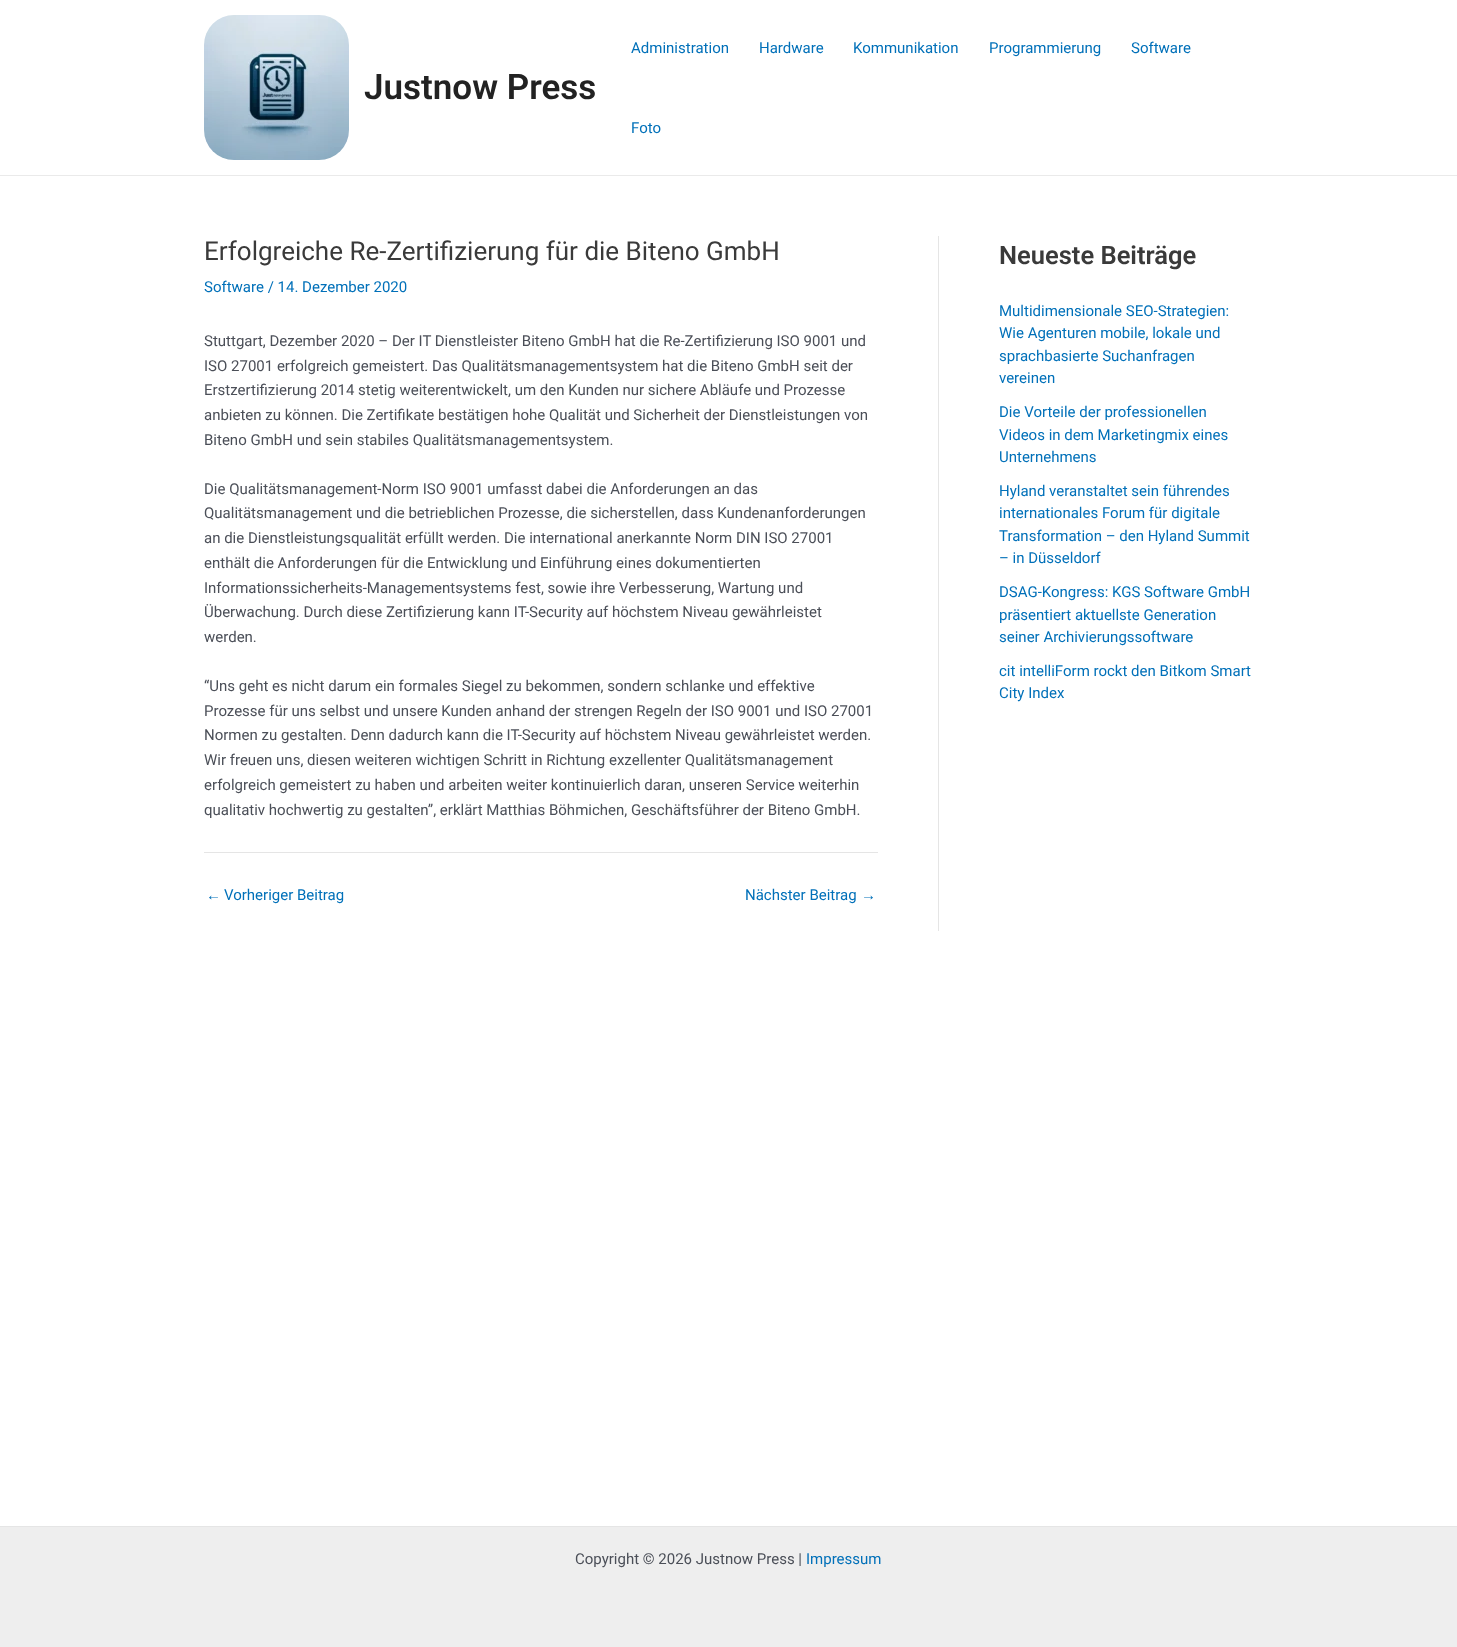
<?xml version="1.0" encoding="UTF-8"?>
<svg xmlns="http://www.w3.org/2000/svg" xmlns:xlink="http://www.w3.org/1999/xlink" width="1457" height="1647">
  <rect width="100%" height="100%" fill="#ffffff" />
  <rect y="175" width="1457" height="1" fill="#eaeaea" />
  <image x="204" y="15" width="145" height="145" xlink:href="image1.png" />
  <rect x="204" y="852" width="674" height="1" fill="#e5e5e5" />
  <rect x="938" y="236" width="1" height="695" fill="#e5e5e5" />
  <rect y="1527" width="1457" height="120" fill="#eeeeee" />
  <rect y="1526" width="1457" height="1" fill="#e5e5e5" />
  <text x="364" y="99" style="font-family: Roboto; font-size: 35px; font-weight: 600; fill: #222222">Justnow Press</text>
  <text x="631" y="53" style="font-family: Roboto; font-size: 15px; fill: #0170b9">Administration</text>
  <text x="759" y="53" style="font-family: Roboto; font-size: 15px; fill: #0170b9">Hardware</text>
  <text x="853" y="53" style="font-family: Roboto; font-size: 15px; fill: #0170b9">Kommunikation</text>
  <text x="989" y="53" style="font-family: Roboto; font-size: 15px; fill: #0170b9">Programmierung</text>
  <text x="1131" y="53" style="font-family: Roboto; font-size: 15px; fill: #0170b9">Software</text>
  <text x="631" y="133" style="font-family: Roboto; font-size: 15px; fill: #0170b9">Foto</text>
  <text x="204" y="260" style="font-family: Roboto; font-size: 26px; fill: #3a3a3a">Erfolgreiche Re-Zertifizierung für die Biteno GmbH</text>
  <text x="204" y="292" style="font-family: Roboto; font-size: 15px; fill: #0170b9">Software / 14. Dezember 2020</text>
  <text x="204" y="346" style="font-family: Roboto; font-size: 15px; fill: #4b4f58">Stuttgart, Dezember 2020 – Der IT Dienstleister Biteno GmbH hat die Re-Zertifizierung ISO 9001 und</text>
  <text x="204" y="371" style="font-family: Roboto; font-size: 15px; fill: #4b4f58">ISO 27001 erfolgreich gemeistert. Das Qualitätsmanagementsystem hat die Biteno GmbH seit der</text>
  <text x="204" y="395" style="font-family: Roboto; font-size: 15px; fill: #4b4f58">Erstzertifizierung 2014 stetig weiterentwickelt, um den Kunden nur sichere Abläufe und Prozesse</text>
  <text x="204" y="420" style="font-family: Roboto; font-size: 15px; fill: #4b4f58">anbieten zu können. Die Zertifikate bestätigen hohe Qualität und Sicherheit der Dienstleistungen von</text>
  <text x="204" y="445" style="font-family: Roboto; font-size: 15px; fill: #4b4f58">Biteno GmbH und sein stabiles Qualitätsmanagementsystem.</text>
  <text x="204" y="494" style="font-family: Roboto; font-size: 15px; fill: #4b4f58">Die Qualitätsmanagement-Norm ISO 9001 umfasst dabei die Anforderungen an das</text>
  <text x="204" y="518" style="font-family: Roboto; font-size: 15px; fill: #4b4f58">Qualitätsmanagement und die betrieblichen Prozesse, die sicherstellen, dass Kundenanforderungen</text>
  <text x="204" y="543" style="font-family: Roboto; font-size: 15px; fill: #4b4f58">an die Dienstleistungsqualität erfüllt werden. Die international anerkannte Norm DIN ISO 27001</text>
  <text x="204" y="568" style="font-family: Roboto; font-size: 15px; fill: #4b4f58">enthält die Anforderungen für die Entwicklung und Einführung eines dokumentierten</text>
  <text x="204" y="593" style="font-family: Roboto; font-size: 15px; fill: #4b4f58">Informationssicherheits-Managementsystems fest, sowie ihre Verbesserung, Wartung und</text>
  <text x="204" y="617" style="font-family: Roboto; font-size: 15px; fill: #4b4f58">Überwachung. Durch diese Zertifizierung kann IT-Security auf höchstem Niveau gewährleistet</text>
  <text x="204" y="642" style="font-family: Roboto; font-size: 15px; fill: #4b4f58">werden.</text>
  <text x="204" y="691" style="font-family: Roboto; font-size: 15px; fill: #4b4f58">“Uns geht es nicht darum ein formales Siegel zu bekommen, sondern schlanke und effektive</text>
  <text x="204" y="716" style="font-family: Roboto; font-size: 15px; fill: #4b4f58">Prozesse für uns selbst und unsere Kunden anhand der strengen Regeln der ISO 9001 und ISO 27001</text>
  <text x="204" y="740" style="font-family: Roboto; font-size: 15px; fill: #4b4f58">Normen zu gestalten. Denn dadurch kann die IT-Security auf höchstem Niveau gewährleistet werden.</text>
  <text x="204" y="765" style="font-family: Roboto; font-size: 15px; fill: #4b4f58">Wir freuen uns, diesen weiteren wichtigen Schritt in Richtung exzellenter Qualitätsmanagement</text>
  <text x="204" y="790" style="font-family: Roboto; font-size: 15px; fill: #4b4f58">erfolgreich gemeistert zu haben und arbeiten weiter kontinuierlich daran, unseren Service weiterhin</text>
  <text x="204" y="815" style="font-family: Roboto; font-size: 15px; fill: #4b4f58">qualitativ hochwertig zu gestalten”, erklärt Matthias Böhmichen, Geschäftsführer der Biteno GmbH.</text>
  <text x="206" y="900" style="font-family: Liberation Sans; font-size: 15px; fill: #0170b9">←</text>
  <text x="224" y="900" style="font-family: Roboto; font-size: 15px; fill: #0170b9">Vorheriger Beitrag</text>
  <text x="745" y="900" style="font-family: Roboto; font-size: 15px; fill: #0170b9">Nächster Beitrag</text>
  <text x="861" y="900" style="font-family: Liberation Sans; font-size: 15px; fill: #0170b9">→</text>
  <text x="999" y="264" style="font-family: Roboto; font-size: 25.5px; font-weight: 600; fill: #3a3a3a">Neueste Beiträge</text>
  <text x="999" y="316" style="font-family: Roboto; font-size: 15px; fill: #0170b9">Multidimensionale SEO-Strategien:</text>
  <text x="999" y="338" style="font-family: Roboto; font-size: 15px; fill: #0170b9">Wie Agenturen mobile, lokale und</text>
  <text x="999" y="361" style="font-family: Roboto; font-size: 15px; fill: #0170b9">sprachbasierte Suchanfragen</text>
  <text x="999" y="383" style="font-family: Roboto; font-size: 15px; fill: #0170b9">vereinen</text>
  <text x="999" y="417" style="font-family: Roboto; font-size: 15px; fill: #0170b9">Die Vorteile der professionellen</text>
  <text x="999" y="440" style="font-family: Roboto; font-size: 15px; fill: #0170b9">Videos in dem Marketingmix eines</text>
  <text x="999" y="462" style="font-family: Roboto; font-size: 15px; fill: #0170b9">Unternehmens</text>
  <text x="999" y="496" style="font-family: Roboto; font-size: 15px; fill: #0170b9">Hyland veranstaltet sein führendes</text>
  <text x="999" y="518" style="font-family: Roboto; font-size: 15px; fill: #0170b9">internationales Forum für digitale</text>
  <text x="999" y="541" style="font-family: Roboto; font-size: 15px; fill: #0170b9">Transformation – den Hyland Summit</text>
  <text x="999" y="563" style="font-family: Roboto; font-size: 15px; fill: #0170b9">– in Düsseldorf</text>
  <text x="999" y="597" style="font-family: Roboto; font-size: 15px; fill: #0170b9">DSAG-Kongress: KGS Software GmbH</text>
  <text x="999" y="620" style="font-family: Roboto; font-size: 15px; fill: #0170b9">präsentiert aktuellste Generation</text>
  <text x="999" y="642" style="font-family: Roboto; font-size: 15px; fill: #0170b9">seiner Archivierungssoftware</text>
  <text x="999" y="676" style="font-family: Roboto; font-size: 15px; fill: #0170b9">cit intelliForm rockt den Bitkom Smart</text>
  <text x="999" y="698" style="font-family: Roboto; font-size: 15px; fill: #0170b9">City Index</text>
  <text x="575" y="1564" style="font-family: Roboto; font-size: 15px; fill: #4b4f58">Copyright © 2026 Justnow Press |</text>
  <text x="806" y="1564" style="font-family: Roboto; font-size: 15px; fill: #0170b9">Impressum</text>
</svg>
